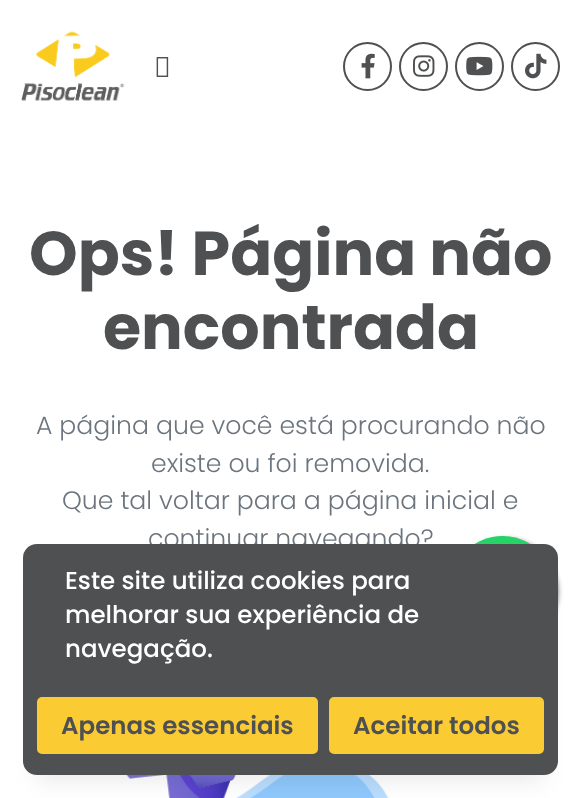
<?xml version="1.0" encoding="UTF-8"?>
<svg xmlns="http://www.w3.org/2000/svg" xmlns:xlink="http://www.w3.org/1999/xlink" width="580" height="798">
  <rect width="100%" height="100%" fill="#ffffff" />
  <image x="21" y="31" width="104" height="70" xlink:href="image1.png" />
  <image x="156" y="57" width="13" height="20" xlink:href="image2.png" />
  <circle cx="367.5" cy="66.5" r="23.5" fill="none" stroke="#4e5052" stroke-width="2" />
  <image x="361" y="53" width="14" height="26" xlink:href="image3.png" />
  <circle cx="423.5" cy="66.5" r="23.5" fill="none" stroke="#4e5052" stroke-width="2" />
  <image x="413" y="55" width="22" height="22" xlink:href="image4.png" />
  <circle cx="479.5" cy="66.5" r="23.5" fill="none" stroke="#4e5052" stroke-width="2" />
  <image x="466" y="56" width="27" height="20" xlink:href="image5.png" />
  <circle cx="535.5" cy="66.5" r="23.5" fill="none" stroke="#4e5052" stroke-width="2" />
  <image x="525" y="53" width="22" height="26" xlink:href="image6.png" />
  <image x="102" y="775" width="287" height="23" xlink:href="image7.png" />
  <rect x="453" y="539" width="105" height="105" rx="52.5" fill="#000000" fill-opacity="0.6" filter="blur(2.5px)" />
  <circle cx="502.5" cy="588.5" r="52.5" fill="#25d366" />
  <rect x="37" y="579" width="507" height="203" fill="#000000" fill-opacity="0.08" filter="blur(10.5px)" />
  <text x="29" y="275" style="font-family: Poppins; font-size: 61.9px; font-weight: bold; fill: #4e5052">Ops! Página não</text>
  <text x="103" y="349" style="font-family: Poppins; font-size: 61.9px; font-weight: bold; fill: #4e5052">encontrada</text>
  <text x="36" y="434" style="font-family: Poppins; font-size: 25.2px; font-weight: 300; fill: #6c757d">A página que você está procurando não</text>
  <text x="151" y="472" style="font-family: Poppins; font-size: 25.2px; font-weight: 300; fill: #6c757d">existe ou foi removida.</text>
  <text x="62" y="509" style="font-family: Poppins; font-size: 25.2px; font-weight: 300; fill: #6c757d">Que tal voltar para a página inicial e</text>
  <text x="148" y="547" style="font-family: Poppins; font-size: 25.2px; font-weight: 300; fill: #6c757d">continuar navegando?</text>
  <rect x="23" y="544" width="535" height="231" rx="14" fill="#4e5052" />
  <text x="65" y="589" style="font-family: Poppins; font-size: 24.5px; font-weight: 500; fill: #ffffff">Este site utiliza cookies para</text>
  <text x="65" y="623" style="font-family: Poppins; font-size: 24.5px; font-weight: 500; fill: #ffffff">melhorar sua experiência de</text>
  <text x="65" y="657" style="font-family: Poppins; font-size: 24.5px; font-weight: 500; fill: #ffffff">navegação.</text>
  <rect x="36" y="696" width="283" height="59" rx="6" fill="#fbcb34" stroke="#4e5052" stroke-width="2" />
  <text x="61" y="734" style="font-family: Poppins; font-size: 24.5px; font-weight: 600; fill: #4e5052">Apenas essenciais</text>
  <rect x="328" y="696" width="217" height="59" rx="6" fill="#fbcb34" stroke="#4e5052" stroke-width="2" />
  <text x="353" y="734" style="font-family: Poppins; font-size: 24.5px; font-weight: 600; fill: #4e5052">Aceitar todos</text>
</svg>
